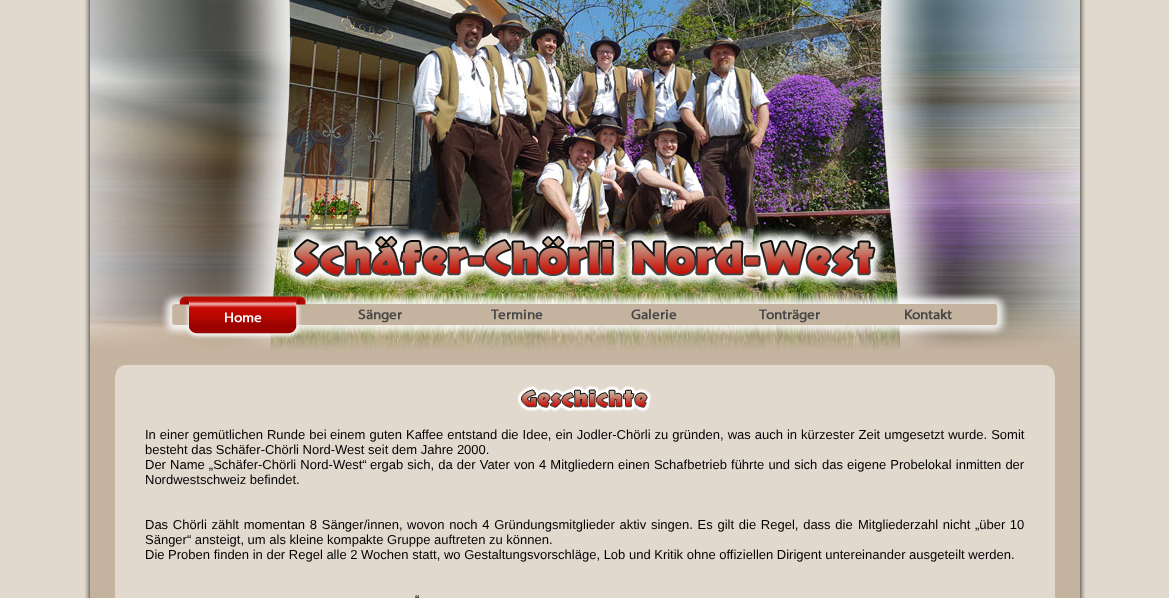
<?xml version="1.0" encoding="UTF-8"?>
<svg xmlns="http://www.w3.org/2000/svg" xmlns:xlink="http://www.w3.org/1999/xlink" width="1169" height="598">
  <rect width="100%" height="100%" fill="#e1d9ce" />
  <image x="84" y="0" width="1002" height="598" xlink:href="image1.png" />
  <image x="90" y="0" width="990" height="350" xlink:href="image2.png" />
  <image x="283" y="224" width="604" height="64" xlink:href="image3.png" />
  <image x="160" y="292" width="19" height="44" xlink:href="image4.png" />
  <image x="179" y="292" width="127" height="48" xlink:href="image5.png" />
  <image x="306" y="292" width="10" height="45" xlink:href="image6.png" />
  <image x="316" y="292" width="127" height="45" xlink:href="image7.png" />
  <image x="443" y="292" width="10" height="45" xlink:href="image8.png" />
  <image x="453" y="292" width="127" height="45" xlink:href="image9.png" />
  <image x="580" y="292" width="10" height="45" xlink:href="image10.png" />
  <image x="590" y="292" width="127" height="45" xlink:href="image11.png" />
  <image x="717" y="292" width="10" height="45" xlink:href="image12.png" />
  <image x="727" y="292" width="127" height="45" xlink:href="image13.png" />
  <image x="854" y="292" width="10" height="45" xlink:href="image14.png" />
  <image x="864" y="292" width="127" height="45" xlink:href="image15.png" />
  <image x="991" y="292" width="18" height="45" xlink:href="image16.png" />
  <image x="115" y="365" width="940" height="10" xlink:href="image17.png" />
  <rect x="115" y="375" width="940" height="223" fill="#e1d9ce" />
  <image x="517" y="385" width="135" height="27" xlink:href="image18.png" />
  <text x="145" y="439" word-spacing="0.4" style="font-family: Liberation Sans; font-size: 13px; fill: #000000">In einer gemütlichen Runde bei</text>
  <text x="330" y="439" word-spacing="0.4" style="font-family: Liberation Sans; font-size: 13px; fill: #000000">einem guten Kaffee entstand die Idee, ein Jodler-Chörli zu gründen, was auch in</text>
  <text x="801" y="439" word-spacing="0.4" style="font-family: Liberation Sans; font-size: 13px; fill: #000000">kürzester Zeit umgesetzt wurde. Somit</text>
  <text x="145" y="454" style="font-family: Liberation Sans; font-size: 13px; fill: #000000">besteht das Schäfer-Chörli Nord-West seit dem Jahre 2000.</text>
  <text x="145" y="469" word-spacing="0.5" style="font-family: Liberation Sans; font-size: 13px; fill: #000000">Der Name „Schäfer-Chörli Nord-West“</text>
  <text x="370" y="469" word-spacing="0.5" style="font-family: Liberation Sans; font-size: 13px; fill: #000000">ergab sich, da der Vater von 4 Mitgliedern einen Schafbetrieb führte und sich</text>
  <text x="822" y="469" word-spacing="0.5" style="font-family: Liberation Sans; font-size: 13px; fill: #000000">das eigene Probelokal inmitten der</text>
  <text x="145" y="484" style="font-family: Liberation Sans; font-size: 13px; fill: #000000">Nordwestschweiz befindet.</text>
  <text x="145" y="529" word-spacing="1.1" style="font-family: Liberation Sans; font-size: 13px; fill: #000000">Das Chörli zählt momentan 8 Sänger/innen,</text>
  <text x="407" y="529" word-spacing="1.1" style="font-family: Liberation Sans; font-size: 13px; fill: #000000">wovon noch 4 Gründungsmitglieder aktiv singen. Es gilt die Regel, dass die</text>
  <text x="858" y="529" word-spacing="1" style="font-family: Liberation Sans; font-size: 13px; fill: #000000">Mitgliederzahl nicht „über 10</text>
  <text x="145" y="544" style="font-family: Liberation Sans; font-size: 13px; fill: #000000">Sänger“ ansteigt, um als kleine kompakte Gruppe auftreten zu können.</text>
  <text x="145" y="559" style="font-family: Liberation Sans; font-size: 13px; fill: #000000">Die Proben finden in der Regel alle 2 Wochen statt, wo Gestaltungsvorschläge, Lob und Kritik ohne offiziellen Dirigent untereinander ausgeteilt werden.</text>
  <text x="415" y="604" style="font-family: Liberation Sans; font-size: 13px; fill: #000000">“</text>
</svg>
